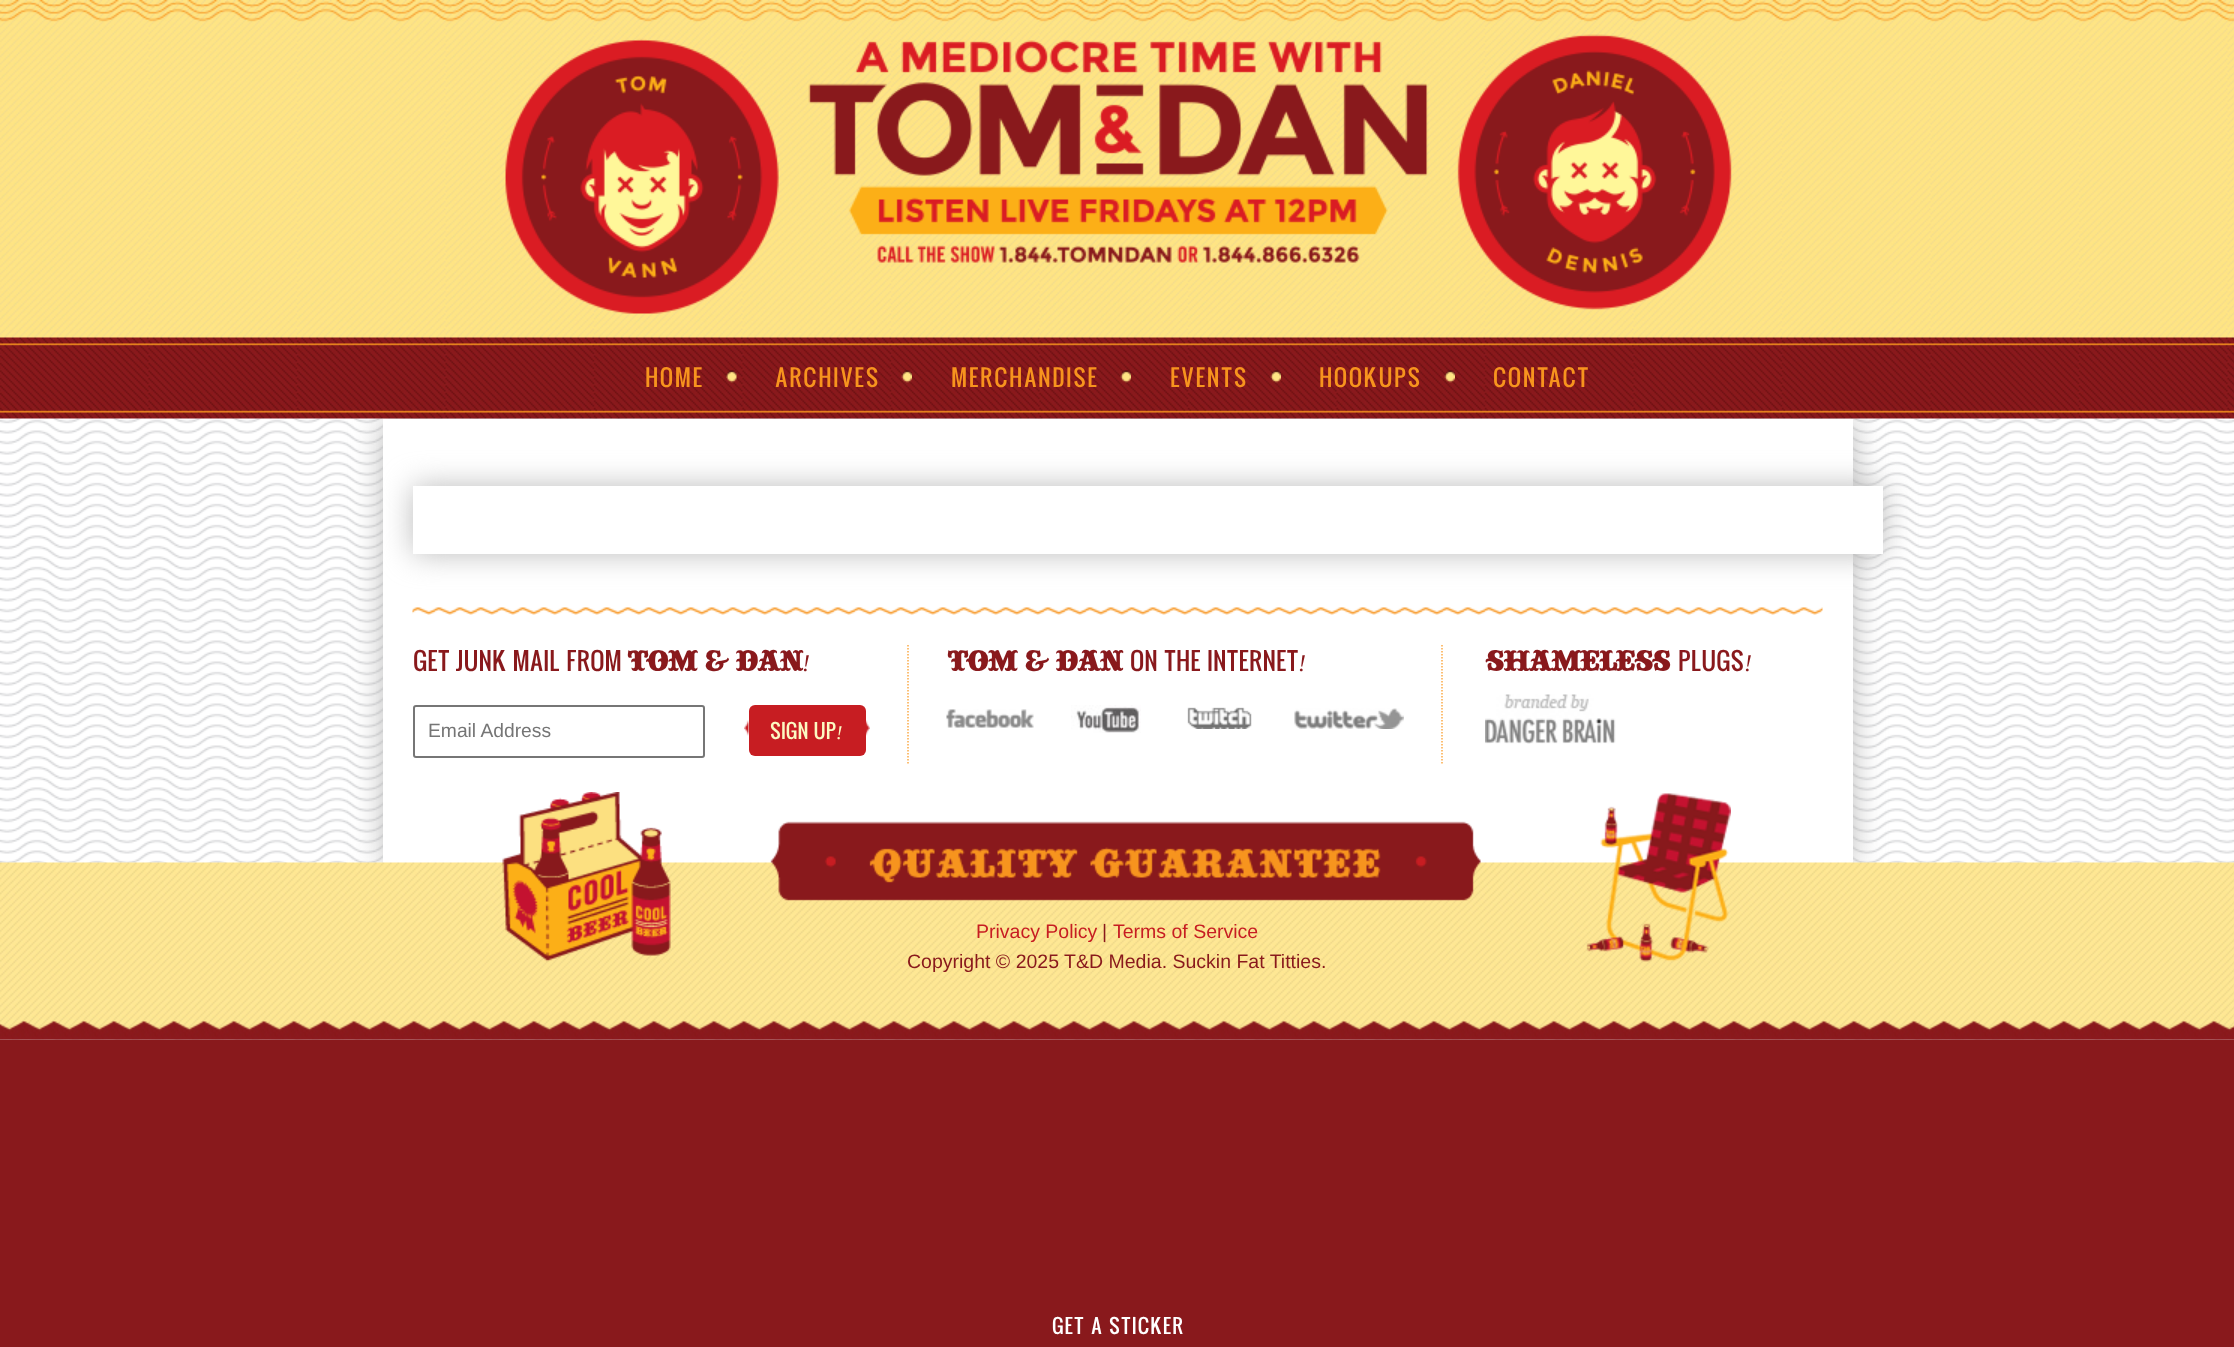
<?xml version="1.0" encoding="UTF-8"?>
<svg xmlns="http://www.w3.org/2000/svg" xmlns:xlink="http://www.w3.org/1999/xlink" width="2234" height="1347">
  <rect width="100%" height="100%" fill="#89191c" />
  <image x="0" y="418" width="2234" height="622" xlink:href="image1.png" />
  <rect x="383" y="419" width="1470" height="444" fill="#bbbbbb" filter="blur(15px)" />
  <image x="0" y="0" width="2234" height="419" xlink:href="image2.png" />
  <image x="505" y="34" width="1227" height="280" xlink:href="image3.png" />
  <image x="726" y="370" width="11" height="13" xlink:href="image4.png" />
  <image x="901" y="370" width="11" height="13" xlink:href="image5.png" />
  <image x="1120" y="370" width="11" height="13" xlink:href="image6.png" />
  <image x="1270" y="370" width="11" height="13" xlink:href="image7.png" />
  <image x="1444" y="370" width="11" height="13" xlink:href="image8.png" />
  <rect x="383" y="419" width="1470" height="444" fill="#ffffff" />
  <rect x="413" y="486" width="1470" height="68" fill="#bbbbbb" filter="blur(15px)" />
  <rect x="413" y="486" width="1470" height="68" fill="#ffffff" />
  <image x="412" y="607" width="1411" height="8" xlink:href="image9.png" />
  <path d="M 908 645 v 120" fill="none" stroke="#fbaa47" stroke-width="1.5" stroke-dasharray="1.5 1.5" />
  <rect x="414" y="706" width="290" height="51" rx="2" fill="none" stroke="#767676" stroke-width="2" />
  <image x="744" y="720" width="5" height="16" xlink:href="image10.png" />
  <rect x="749" y="705" width="117" height="51" rx="6" fill="#c71d22" />
  <image x="866" y="720" width="4" height="16" xlink:href="image11.png" />
  <path d="M 1442 645 v 120" fill="none" stroke="#fbaa47" stroke-width="1.5" stroke-dasharray="1.5 1.5" />
  <image x="946" y="709" width="88" height="19" xlink:href="image12.png" />
  <image x="1071" y="705" width="70" height="28" xlink:href="image13.png" />
  <image x="1187" y="707" width="65" height="22" xlink:href="image14.png" />
  <image x="1294" y="708" width="110" height="21" xlink:href="image15.png" />
  <image x="1485" y="694" width="131" height="50" xlink:href="image16.png" />
  <image x="0" y="862" width="2234" height="178" xlink:href="image17.png" />
  <image x="502" y="792" width="1229" height="170" xlink:href="image18.png" />
  <text x="645" y="387" style="font-family: Oswald; font-size: 22.5px; letter-spacing: 1.5px; fill: #f7941e">HOME</text>
  <text x="775" y="387" style="font-family: Oswald; font-size: 22.5px; letter-spacing: 1.5px; fill: #f7941e">ARCHIVES</text>
  <text x="951" y="387" style="font-family: Oswald; font-size: 22.5px; letter-spacing: 1.5px; fill: #f7941e">MERCHANDISE</text>
  <text x="1170" y="387" style="font-family: Oswald; font-size: 22.5px; letter-spacing: 1.5px; fill: #f7941e">EVENTS</text>
  <text x="1319" y="387" style="font-family: Oswald; font-size: 22.5px; letter-spacing: 1.5px; fill: #f7941e">HOOKUPS</text>
  <text x="1493" y="387" style="font-family: Oswald; font-size: 22.5px; letter-spacing: 1.5px; fill: #f7941e">CONTACT</text>
  <text x="413" y="671" style="font-family: Oswald; font-size: 24px; fill: #89191c">GET JUNK MAIL FROM</text>
  <text x="627" y="671" style="font-family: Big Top; font-size: 28.75px; letter-spacing: -2.9px; fill: #89191c">TOM &amp; DAN</text>
  <text x="802" y="671" style="font-family: Liberation Serif; font-size: 24px; font-style: italic; fill: #89191c">!</text>
  <text x="428" y="737" style="font-family: Liberation Sans; font-size: 19.25px; fill: #757575">Email Address</text>
  <text x="770" y="739" style="font-family: Oswald; font-size: 19.5px; fill: #fcf9c2">SIGN UP</text>
  <text x="836" y="739" style="font-family: Liberation Serif; font-size: 19.5px; font-style: italic; fill: #fcf9c2">!</text>
  <text x="947" y="671" style="font-family: Big Top; font-size: 28.75px; letter-spacing: -2.9px; fill: #89191c">TOM &amp; DAN</text>
  <text x="1130" y="671" style="font-family: Oswald; font-size: 24px; fill: #89191c">ON THE INTERNET</text>
  <text x="1298" y="671" style="font-family: Liberation Serif; font-size: 24px; font-style: italic; fill: #89191c">!</text>
  <text x="1485" y="671" style="font-family: Big Top; font-size: 28.75px; letter-spacing: -2.9px; fill: #89191c">SHAMELESS</text>
  <text x="1678" y="671" style="font-family: Oswald; font-size: 24px; fill: #89191c">PLUGS</text>
  <text x="1744" y="671" style="font-family: Liberation Serif; font-size: 24px; font-style: italic; fill: #89191c">!</text>
  <text x="976" y="938" style="font-family: Liberation Sans; font-size: 19.5px; fill: #c71d22">Privacy Policy</text>
  <text x="1102" y="938" style="font-family: Liberation Sans; font-size: 19.5px; fill: #89191c">|</text>
  <text x="1113" y="938" style="font-family: Liberation Sans; font-size: 19.5px; fill: #c71d22">Terms of Service</text>
  <text x="907" y="968" style="font-family: Liberation Sans; font-size: 19.5px; fill: #89191c">Copyright © 2025 T&amp;D Media. Suckin Fat Titties.</text>
  <text x="1052" y="1334" style="font-family: Oswald; font-size: 19.5px; letter-spacing: 1px; fill: #ffffff">GET A STICKER</text>
</svg>
